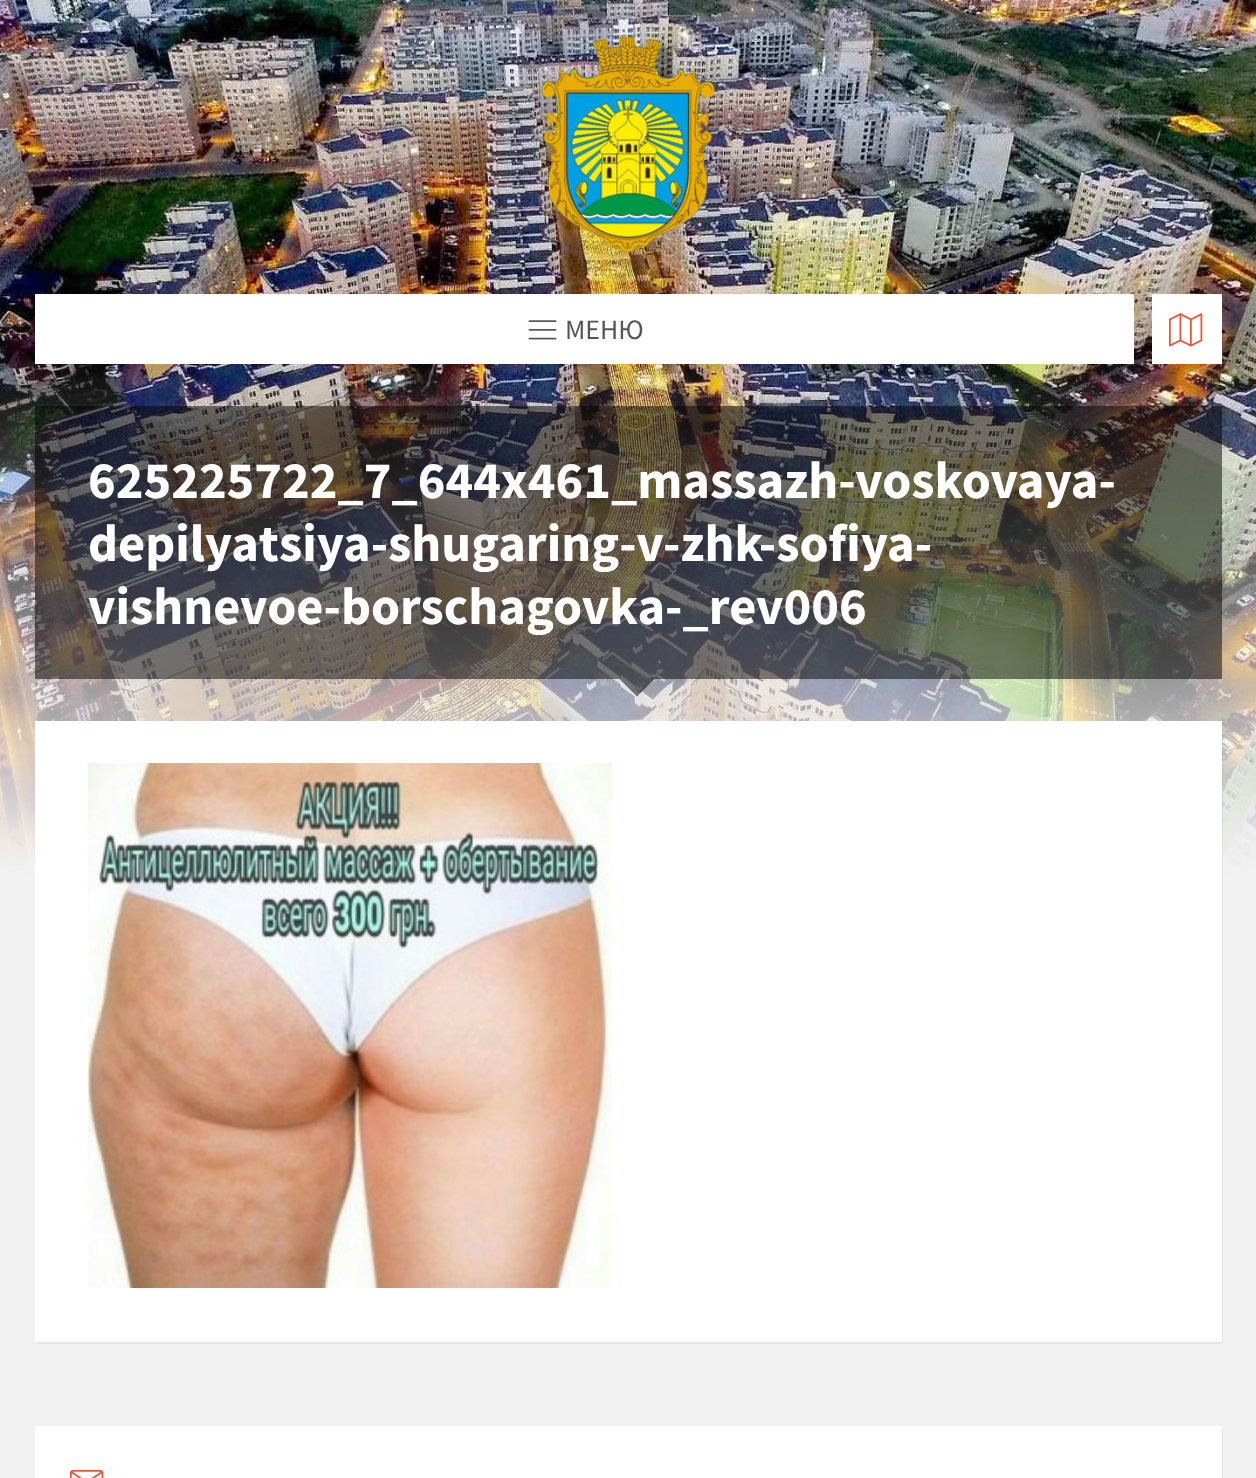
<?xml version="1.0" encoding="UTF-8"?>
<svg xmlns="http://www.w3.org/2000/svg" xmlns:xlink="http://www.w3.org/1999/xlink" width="1256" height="1478">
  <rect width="100%" height="100%" fill="#f2f2f2" />
  <image x="0" y="0" width="1256" height="875" xlink:href="image1.png" />
  <image x="540" y="35" width="176" height="219" xlink:href="image2.png" />
  <rect x="35" y="294" width="1099" height="70" fill="#ffffff" />
  <image x="528" y="320" width="29" height="20" xlink:href="image3.png" />
  <rect x="1152" y="294" width="70" height="70" fill="#ffffff" />
  <image x="1169" y="313" width="34" height="34" xlink:href="image4.png" />
  <rect x="35" y="406" width="1187" height="273" fill="#000000" fill-opacity="0.5" />
  <path d="M 619.5 679 h 35 l -17.5 17.5 z" fill="#000000" fill-opacity="0.5" />
  <path d="M 37 1342 v 2 h 1186 v -621 h -1 v 619 z" fill="#000000" fill-opacity="0.05" />
  <rect x="35" y="721" width="1187" height="621" fill="#ffffff" />
  <image x="87" y="763" width="526" height="525" xlink:href="image5.png" />
  <path d="M 37 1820 v 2 h 1186 v -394 h -1 v 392 z" fill="#e6e6e6" />
  <rect x="35" y="1426" width="1187" height="52" fill="#ffffff" />
  <image x="70" y="1470" width="34" height="8" xlink:href="image6.png" />
  <text x="565" y="339" style="font-family: Source Sans Pro; font-size: 28px; fill: #565656">МЕНЮ</text>
  <text x="88" y="498" style="font-family: Source Sans Pro; font-size: 52.5px; font-weight: bold; fill: #ffffff">625225722_7_644x461_massazh-voskovaya-</text>
  <text x="88" y="561" style="font-family: Source Sans Pro; font-size: 52.5px; font-weight: bold; fill: #ffffff">depilyatsiya-shugaring-v-zhk-sofiya-</text>
  <text x="88" y="624" style="font-family: Source Sans Pro; font-size: 52.5px; font-weight: bold; fill: #ffffff">vishnevoe-borschagovka-_rev006</text>
</svg>
